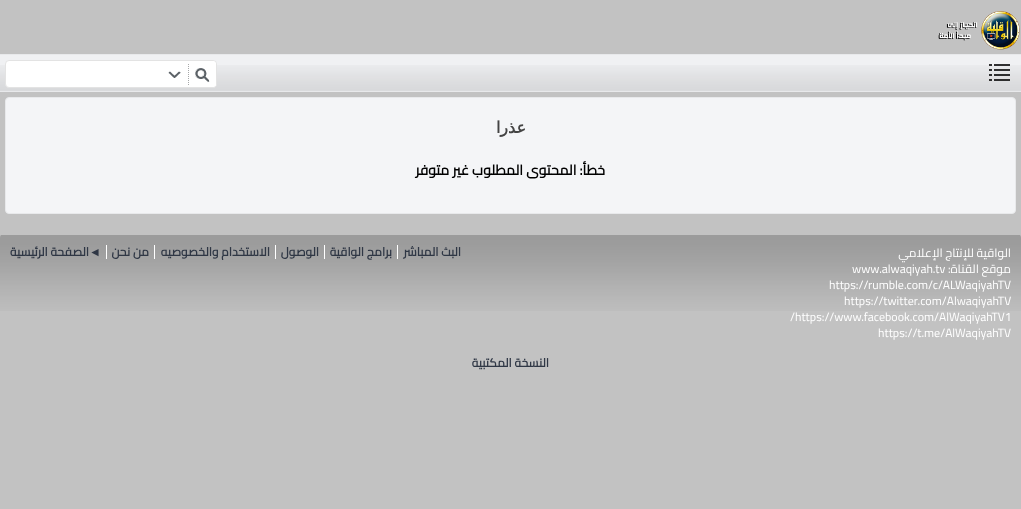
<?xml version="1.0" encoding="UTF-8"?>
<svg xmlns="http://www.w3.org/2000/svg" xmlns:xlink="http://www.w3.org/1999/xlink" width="1021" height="509">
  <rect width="100%" height="100%" fill="#c2c2c2" />
  <image x="938" y="11" width="82" height="39" xlink:href="image1.png" />
  <rect y="55" width="1021" height="36" fill="#f0f1f3" />
  <image x="0" y="65" width="1021" height="26" xlink:href="image2.png" />
  <rect y="54" width="1021" height="1" fill="#e8e9eb" />
  <rect y="91" width="1021" height="1" fill="#e8e9eb" />
  <image x="989" y="64" width="21" height="17" xlink:href="image3.png" />
  <rect x="5.5" y="60.5" width="211" height="27" rx="3.5" fill="#ffffff" stroke="#e3e3e3" />
  <path d="M 188 61 h 25 c 1.5 0 3 1.5 3 3 v 20 c 0 1.5 -1.5 3 -3 3 h -25 z" fill="#ffffff" />
  <image x="188" y="64" width="28" height="22" xlink:href="image4.png" />
  <image x="168" y="71" width="13" height="7" xlink:href="image5.png" />
  <rect x="5.5" y="97.5" width="1010" height="116" rx="3.5" fill="#f4f5f7" stroke="#e8e9eb" />
  <image x="0" y="235" width="1021" height="76" xlink:href="image6.png" />
  <rect x="397" y="245" width="1" height="14" fill="#ffffff" />
  <rect x="324" y="245" width="1" height="14" fill="#ffffff" />
  <rect x="275" y="245" width="1" height="14" fill="#ffffff" />
  <rect x="154" y="245" width="1" height="14" fill="#ffffff" />
  <rect x="106" y="245" width="1" height="14" fill="#ffffff" />
  <text x="526" y="133" style="font-family: DejaVu Sans; font-size: 16px; font-weight: bold; direction: rtl; fill: #444444">عذرا</text>
  <text x="605" y="175" style="font-family: Cairo; font-size: 14px; font-weight: bold; direction: rtl; fill: #000000">خطأ: المحتوى المطلوب غير متوفر</text>
  <text x="1011" y="257" style="font-family: Cairo; font-size: 12px; direction: rtl; fill: #ffffff">الواقية للإنتاج الإعلامي</text>
  <text x="1011" y="273" style="font-family: Cairo; font-size: 12px; direction: rtl; fill: #ffffff">موقع القناة:</text>
  <text x="852" y="273" style="font-family: Cairo; font-size: 12px; fill: #ffffff">www.alwaqiyah.tv</text>
  <text x="829" y="289" style="font-family: Cairo; font-size: 12px; fill: #ffffff">https://rumble.com/c/ALWaqiyahTV</text>
  <text x="844" y="305" style="font-family: Cairo; font-size: 12px; fill: #ffffff">https://twitter.com/AlwaqiyahTV</text>
  <text x="790" y="321" style="font-family: Cairo; font-size: 12px; fill: #ffffff">/https://www.facebook.com/AlWaqiyahTV1</text>
  <text x="878" y="337" style="font-family: Cairo; font-size: 12px; fill: #ffffff">https://t.me/AlWaqiyahTV</text>
  <text x="461" y="256" style="font-family: Cairo; font-size: 12px; font-weight: bold; direction: rtl; fill: #2f3745">البث المباشر</text>
  <text x="392" y="256" style="font-family: Cairo; font-size: 12px; font-weight: bold; direction: rtl; fill: #2f3745">برامج الواقية</text>
  <text x="319" y="256" style="font-family: Cairo; font-size: 12px; font-weight: bold; direction: rtl; fill: #2f3745">الوصول</text>
  <text x="270" y="256" style="font-family: Cairo; font-size: 12px; font-weight: bold; direction: rtl; fill: #2f3745">الاستخدام والخصوصيه</text>
  <text x="149" y="256" style="font-family: Cairo; font-size: 12px; font-weight: bold; direction: rtl; fill: #2f3745">من نحن</text>
  <text x="101" y="256" style="font-family: Liberation Sans; font-size: 12px; font-weight: bold; direction: rtl; fill: #2f3745">◄</text>
  <text x="89" y="256" style="font-family: Cairo; font-size: 12px; font-weight: bold; direction: rtl; fill: #2f3745">الصفحة الرئيسية</text>
  <text x="549" y="367" style="font-family: Cairo; font-size: 12px; font-weight: bold; direction: rtl; fill: #2f3745">النسخة المكتبية</text>
</svg>
